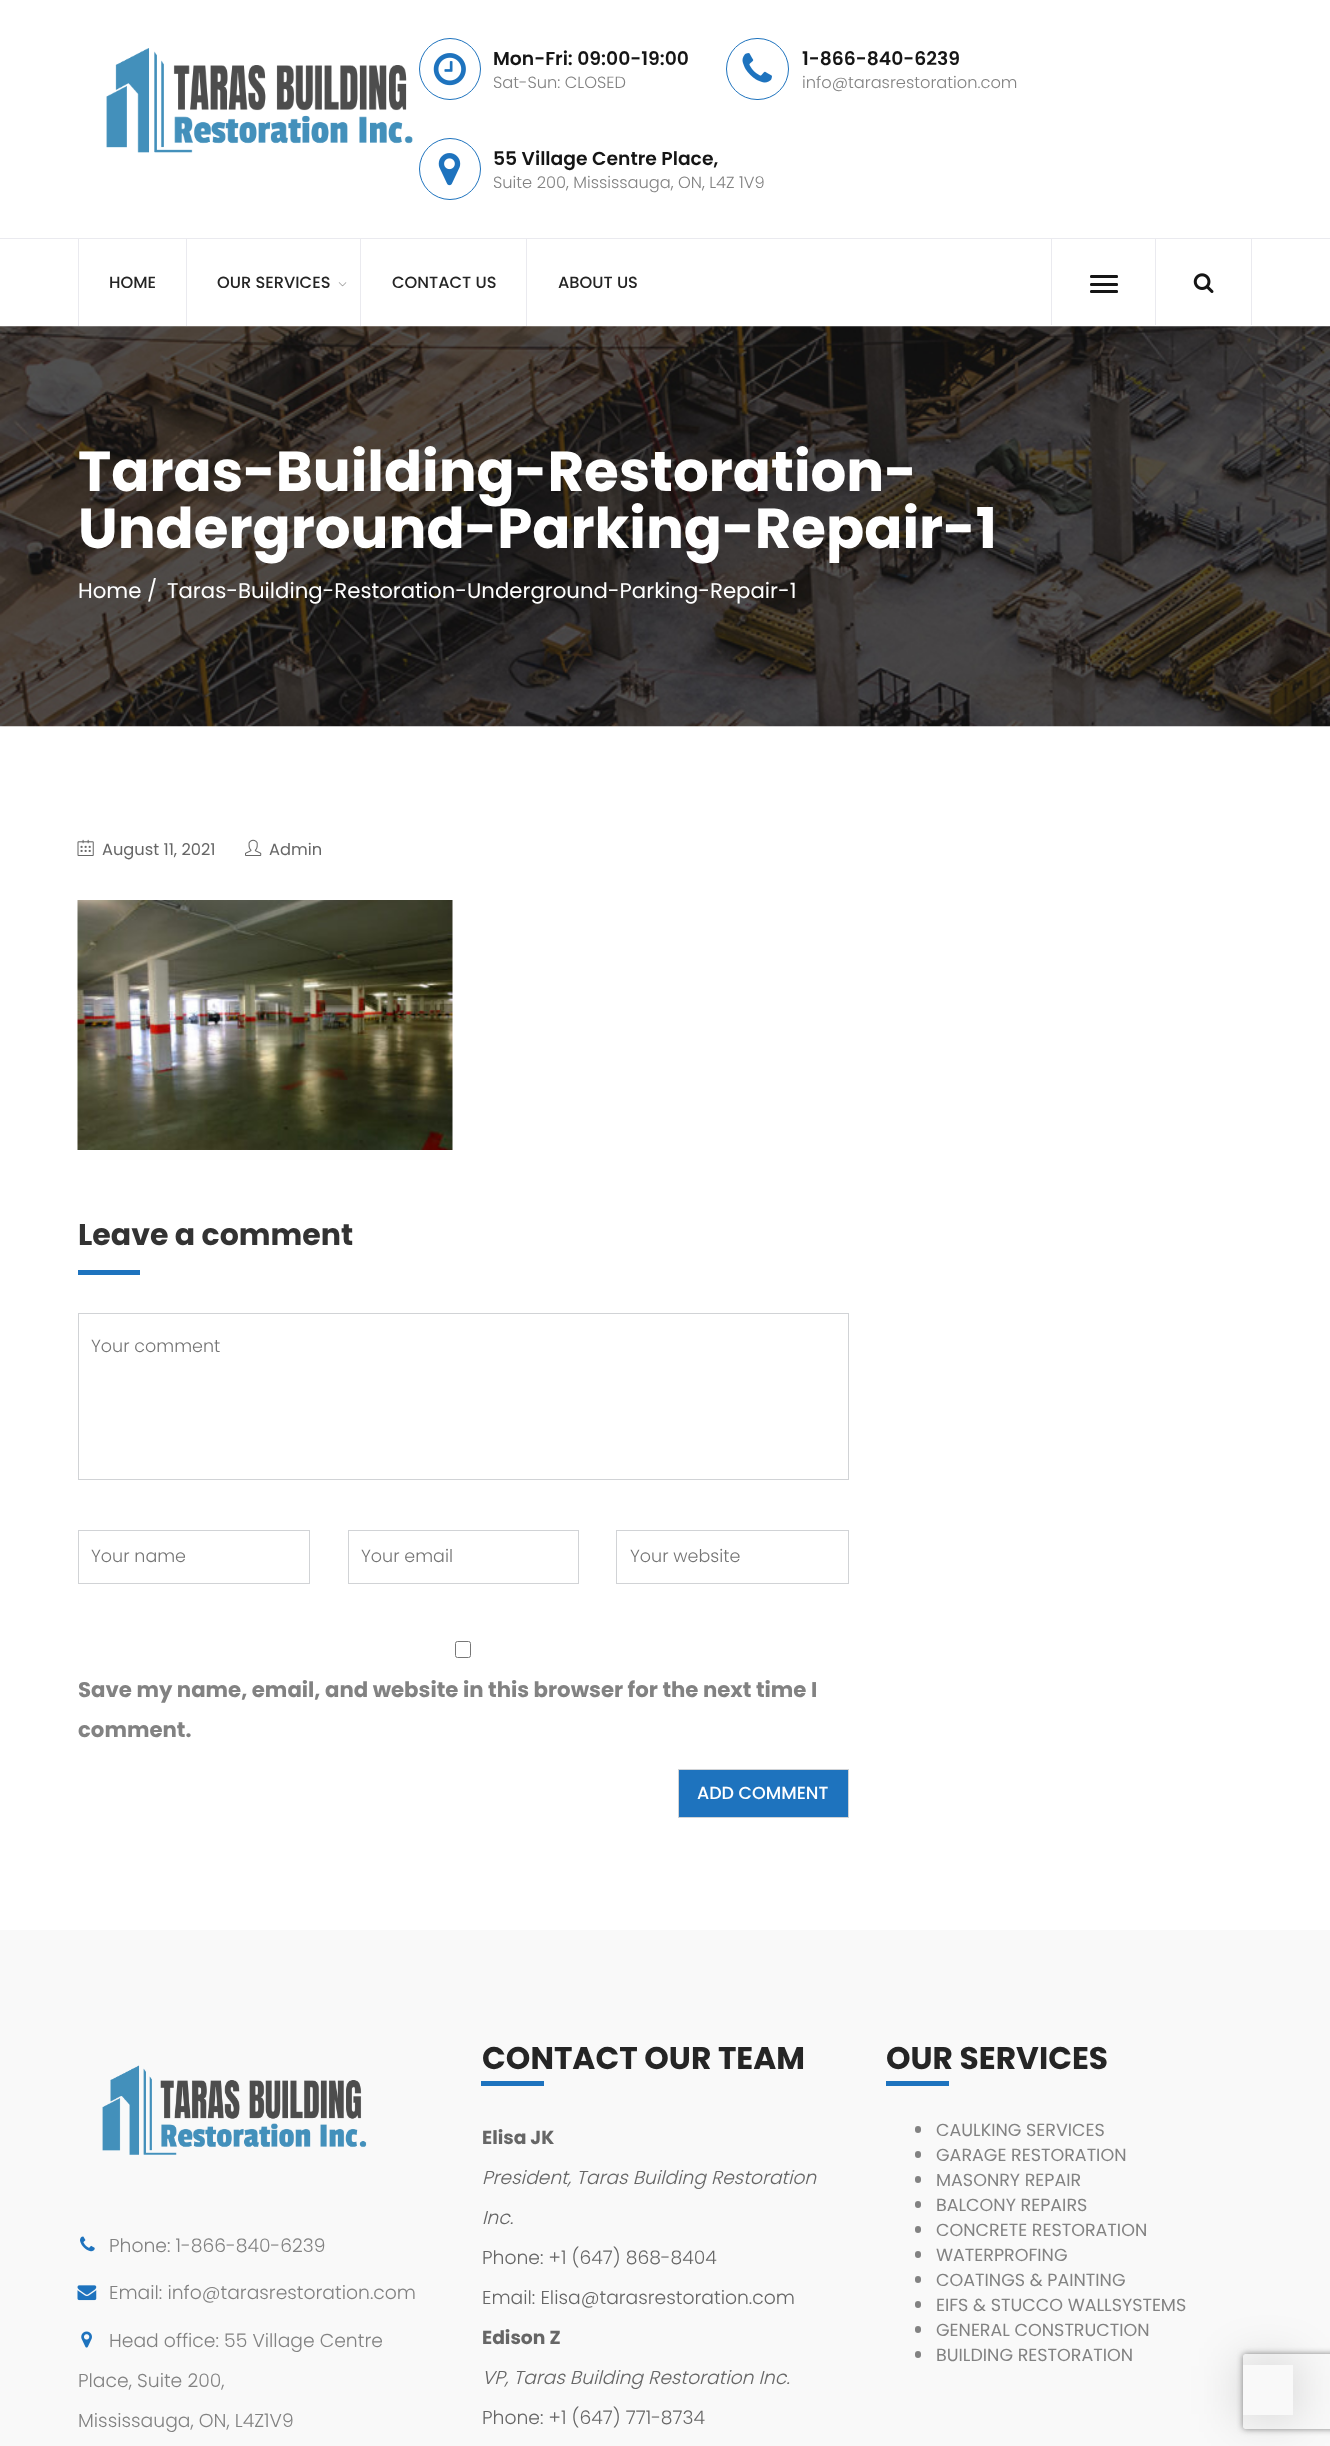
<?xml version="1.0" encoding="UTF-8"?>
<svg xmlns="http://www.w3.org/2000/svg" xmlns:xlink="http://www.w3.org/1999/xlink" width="1330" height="2446">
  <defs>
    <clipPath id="clip1"><path d="M 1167 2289 h 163 v 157 h -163 z m 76 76 h 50 v 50 h -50 z" clip-rule="evenodd" /></clipPath>
    <clipPath id="clip2"><path d="M 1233 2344 h 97 v 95 h -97 z m 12.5 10 h 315 c 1.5 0 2.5 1 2.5 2.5 v 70 c 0 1.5 -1 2.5 -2.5 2.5 h -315 c -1.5 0 -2.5 -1 -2.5 -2.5 v -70 c 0 -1.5 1 -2.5 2.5 -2.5 z" clip-rule="evenodd" /></clipPath>
  </defs>
  <rect width="100%" height="100%" fill="#ffffff" />
  <image x="106" y="48" width="307" height="105" xlink:href="image1.png" />
  <circle cx="450" cy="69" r="30.5" fill="none" stroke="#1e73be" />
  <image x="433" y="53" width="33" height="33" xlink:href="image2.png" />
  <rect x="726.5" y="38.5" width="62" height="61" rx="30.5" fill="none" stroke="#1e73be" />
  <image x="742" y="53" width="30" height="30" xlink:href="image3.png" />
  <circle cx="450" cy="169" r="30.5" fill="none" stroke="#1e73be" />
  <image x="438" y="153" width="23" height="33" xlink:href="image4.png" />
  <rect y="238" width="1330" height="1" fill="#eaeaef" />
  <rect x="78" y="239" width="1" height="87" fill="#eaeaef" />
  <rect x="186" y="239" width="1" height="87" fill="#eaeaef" />
  <image x="338" y="282" width="9" height="5" xlink:href="image5.png" />
  <rect x="360" y="239" width="1" height="87" fill="#eaeaef" />
  <rect x="526" y="239" width="1" height="87" fill="#eaeaef" />
  <rect x="1051" y="239" width="1" height="86" fill="#eaeaef" />
  <path d="M 1091.5 275 h 12.5 v 3 h -12.5 c -1 0 -1.5 -0.5 -1.5 -1.5 c 0 -1 0.5 -1.5 1.5 -1.5 z" fill="#151515" />
  <path d="M 1104 275 h 12.5 c 1 0 1.5 0.5 1.5 1.5 c 0 1 -0.5 1.5 -1.5 1.5 h -12.5 z" fill="#151515" />
  <path d="M 1091.5 283 h 12.5 v 3 h -12.5 c -1 0 -1.5 -0.5 -1.5 -1.5 c 0 -1 0.5 -1.5 1.5 -1.5 z" fill="#151515" />
  <path d="M 1104 283 h 12.5 c 1 0 1.5 0.5 1.5 1.5 c 0 1 -0.5 1.5 -1.5 1.5 h -12.5 z" fill="#151515" />
  <path d="M 1091.5 290 h 12.5 v 3 h -12.5 c -1 0 -1.5 -0.5 -1.5 -1.5 c 0 -1 0.5 -1.5 1.5 -1.5 z" fill="#151515" />
  <path d="M 1104 290 h 12.5 c 1 0 1.5 0.5 1.5 1.5 c 0 1 -0.5 1.5 -1.5 1.5 h -12.5 z" fill="#151515" />
  <rect x="1251" y="239" width="1" height="86" fill="#eaeaef" />
  <rect x="1155" y="239" width="1" height="86" fill="#eaeaef" />
  <image x="1193" y="273" width="21" height="20" xlink:href="image6.png" />
  <image x="0" y="326" width="1330" height="401" xlink:href="image7.png" />
  <image x="77" y="839" width="17" height="17" xlink:href="image8.png" />
  <image x="245" y="839" width="17" height="17" xlink:href="image9.png" />
  <image x="77" y="900" width="376" height="250" xlink:href="image10.png" />
  <rect x="78" y="1270" width="62" height="5" fill="#1e73be" />
  <rect x="78.5" y="1313.5" width="770" height="166" fill="none" stroke="#d1d3d6" />
  <rect x="78.5" y="1530.5" width="231" height="53" fill="none" stroke="#d1d3d6" />
  <rect x="348.5" y="1530.5" width="230" height="53" fill="none" stroke="#d1d3d6" />
  <rect x="616.5" y="1530.5" width="232" height="53" fill="none" stroke="#d1d3d6" />
  <rect x="455.5" y="1641.5" width="15" height="16" rx="2" fill="none" stroke="#767676" />
  <rect x="678.5" y="1769.5" width="170" height="48" fill="#1e73be" stroke="#d1d3d6" />
  <rect y="1930" width="1330" height="516" fill="#f9f9f9" />
  <image x="102" y="2065" width="265" height="90" xlink:href="image11.png" />
  <image x="80" y="2236" width="15" height="16" xlink:href="image12.png" />
  <image x="77" y="2285" width="20" height="16" xlink:href="image13.png" />
  <image x="81" y="2331" width="11" height="17" xlink:href="image14.png" />
  <rect x="481" y="2081" width="63" height="5" fill="#1e73be" />
  <rect x="886" y="2081" width="63" height="5" fill="#1e73be" />
  <rect x="915" y="2126" width="6" height="7" rx="3" fill="#828282" />
  <rect x="915" y="2151" width="6" height="7" rx="3" fill="#828282" />
  <rect x="915" y="2176" width="6" height="7" rx="3" fill="#828282" />
  <rect x="915" y="2201" width="6" height="7" rx="3" fill="#828282" />
  <rect x="915" y="2226" width="6" height="7" rx="3" fill="#828282" />
  <rect x="915" y="2251" width="6" height="7" rx="3" fill="#828282" />
  <rect x="915" y="2276" width="6" height="7" rx="3" fill="#828282" />
  <rect x="915" y="2301" width="6" height="7" rx="3" fill="#828282" />
  <rect x="915" y="2326" width="6" height="7" rx="3" fill="#828282" />
  <rect x="915" y="2351" width="6" height="7" rx="3" fill="#828282" />
  <g clip-path="url(#clip1)">
    <rect x="1243" y="2365" width="50" height="50" fill="#000000" fill-opacity="0.2" filter="blur(25px)" />
  </g>
  <g clip-path="url(#clip2)">
    <rect x="1243" y="2354" width="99" height="75" rx="2.5" fill="#808080" filter="blur(3px)" />
  </g>
  <text x="493" y="65" style="font-family: Poppins; font-size: 18.75px; font-weight: 600; fill: #151515">Mon-Fri: 09:00-19:00</text>
  <text x="493" y="88" style="font-family: Poppins; font-size: 16.25px; font-weight: 300; fill: #828282">Sat-Sun: CLOSED</text>
  <text x="802" y="65" style="font-family: Poppins; font-size: 18.75px; font-weight: 600; fill: #151515">1-866-840-6239</text>
  <text x="802" y="88" style="font-family: Poppins; font-size: 16.25px; font-weight: 300; fill: #828282">info@tarasrestoration.com</text>
  <text x="493" y="165" style="font-family: Poppins; font-size: 18.75px; font-weight: 600; fill: #151515">55 Village Centre Place,</text>
  <text x="493" y="188" style="font-family: Poppins; font-size: 16.25px; font-weight: 300; fill: #828282">Suite 200, Mississauga, ON, L4Z 1V9</text>
  <text x="109" y="288" style="font-family: Poppins; font-size: 16.25px; font-weight: 500; fill: #252525">HOME</text>
  <text x="217" y="288" style="font-family: Poppins; font-size: 16.25px; font-weight: 500; fill: #252525">OUR SERVICES</text>
  <text x="392" y="288" style="font-family: Poppins; font-size: 16.25px; font-weight: 500; fill: #252525">CONTACT US</text>
  <text x="558" y="288" style="font-family: Poppins; font-size: 16.25px; font-weight: 500; fill: #252525">ABOUT US</text>
  <text x="78" y="491" style="font-family: Poppins; font-size: 56.25px; font-weight: bold; fill: #ffffff">Taras-Building-Restoration-</text>
  <text x="78" y="548" style="font-family: Poppins; font-size: 56.25px; font-weight: bold; fill: #ffffff">Underground-Parking-Repair-1</text>
  <text x="78" y="598" style="font-family: Poppins; font-size: 21.25px; fill: #ffffff">Home</text>
  <text x="147" y="598" style="font-family: Poppins; font-size: 21.25px; fill: #ffffff">/</text>
  <text x="167" y="598" style="font-family: Poppins; font-size: 21.25px; fill: #ffffff">Taras-Building-Restoration-Underground-Parking-Repair-1</text>
  <text x="102" y="855" style="font-family: Poppins; font-size: 16.25px; fill: #666666">August 11, 2021</text>
  <text x="269" y="855" style="font-family: Poppins; font-size: 16.25px; fill: #666666">Admin</text>
  <text x="78" y="1245" style="font-family: Poppins; font-size: 30px; font-weight: bold; fill: #333333">Leave a comment</text>
  <text x="91" y="1352" style="font-family: Poppins; font-size: 17.5px; font-weight: 300; fill: #757575">Your comment</text>
  <text x="91" y="1562" style="font-family: Poppins; font-size: 17.5px; font-weight: 300; fill: #757575">Your name</text>
  <text x="361" y="1562" style="font-family: Poppins; font-size: 17.5px; font-weight: 300; fill: #757575">Your email</text>
  <text x="630" y="1562" style="font-family: Poppins; font-size: 17.5px; font-weight: 300; fill: #757575">Your website</text>
  <text x="78" y="1697" style="font-family: Poppins; font-size: 21.25px; font-weight: bold; fill: #828282">Save my name, email, and website in this browser for the next time I</text>
  <text x="78" y="1737" style="font-family: Poppins; font-size: 21.25px; font-weight: bold; fill: #828282">comment.</text>
  <text x="697" y="1799" style="font-family: Poppins; font-size: 17.5px; font-weight: 500; fill: #ffffff">ADD COMMENT</text>
  <text x="109" y="2252" style="font-family: Poppins; font-size: 18.75px; font-weight: 300; fill: #828282">Phone: 1-866-840-6239</text>
  <text x="109" y="2299" style="font-family: Poppins; font-size: 18.75px; font-weight: 300; fill: #828282">Email: info@tarasrestoration.com</text>
  <text x="109" y="2347" style="font-family: Poppins; font-size: 18.75px; font-weight: 300; fill: #828282">Head office: 55 Village Centre</text>
  <text x="78" y="2387" style="font-family: Poppins; font-size: 18.75px; font-weight: 300; fill: #828282">Place, Suite 200,</text>
  <text x="78" y="2427" style="font-family: Poppins; font-size: 18.75px; font-weight: 300; fill: #828282">Mississauga, ON, L4Z1V9</text>
  <text x="482" y="2069" style="font-family: Poppins; font-size: 31.25px; font-weight: bold; fill: #252525">CONTACT OUR TEAM</text>
  <text x="482" y="2144" style="font-family: Poppins; font-size: 18.75px; font-weight: bold; fill: #666666">Elisa JK</text>
  <text x="482" y="2184" style="font-family: Poppins; font-size: 18.75px; font-weight: 300; font-style: italic; fill: #666666">President, Taras Building Restoration</text>
  <text x="482" y="2224" style="font-family: Poppins; font-size: 18.75px; font-weight: 300; font-style: italic; fill: #666666">Inc.</text>
  <text x="482" y="2264" style="font-family: Poppins; font-size: 18.75px; font-weight: 300; fill: #666666">Phone: +1 (647) 868-8404</text>
  <text x="482" y="2304" style="font-family: Poppins; font-size: 18.75px; font-weight: 300; fill: #666666">Email: Elisa@tarasrestoration.com</text>
  <text x="482" y="2344" style="font-family: Poppins; font-size: 18.75px; font-weight: bold; fill: #666666">Edison Z</text>
  <text x="482" y="2384" style="font-family: Poppins; font-size: 18.75px; font-weight: 300; font-style: italic; fill: #666666">VP, Taras Building Restoration Inc.</text>
  <text x="482" y="2424" style="font-family: Poppins; font-size: 18.75px; font-weight: 300; fill: #666666">Phone: +1 (647) 771-8734</text>
  <text x="886" y="2069" style="font-family: Poppins; font-size: 31.25px; font-weight: bold; fill: #252525">OUR SERVICES</text>
  <text x="936" y="2136" style="font-family: Poppins; font-size: 17.5px; fill: #828282">CAULKING SERVICES</text>
  <text x="936" y="2161" style="font-family: Poppins; font-size: 17.5px; fill: #828282">GARAGE RESTORATION</text>
  <text x="936" y="2186" style="font-family: Poppins; font-size: 17.5px; fill: #828282">MASONRY REPAIR</text>
  <text x="936" y="2211" style="font-family: Poppins; font-size: 17.5px; fill: #828282">BALCONY REPAIRS</text>
  <text x="936" y="2236" style="font-family: Poppins; font-size: 17.5px; fill: #828282">CONCRETE RESTORATION</text>
  <text x="936" y="2261" style="font-family: Poppins; font-size: 17.5px; fill: #828282">WATERPROFING</text>
  <text x="936" y="2286" style="font-family: Poppins; font-size: 17.5px; fill: #828282">COATINGS &amp; PAINTING</text>
  <text x="936" y="2311" style="font-family: Poppins; font-size: 17.5px; fill: #828282">EIFS &amp; STUCCO WALLSYSTEMS</text>
  <text x="936" y="2336" style="font-family: Poppins; font-size: 17.5px; fill: #828282">GENERAL CONSTRUCTION</text>
  <text x="936" y="2361" style="font-family: Poppins; font-size: 17.5px; fill: #828282">BUILDING RESTORATION</text>
</svg>
